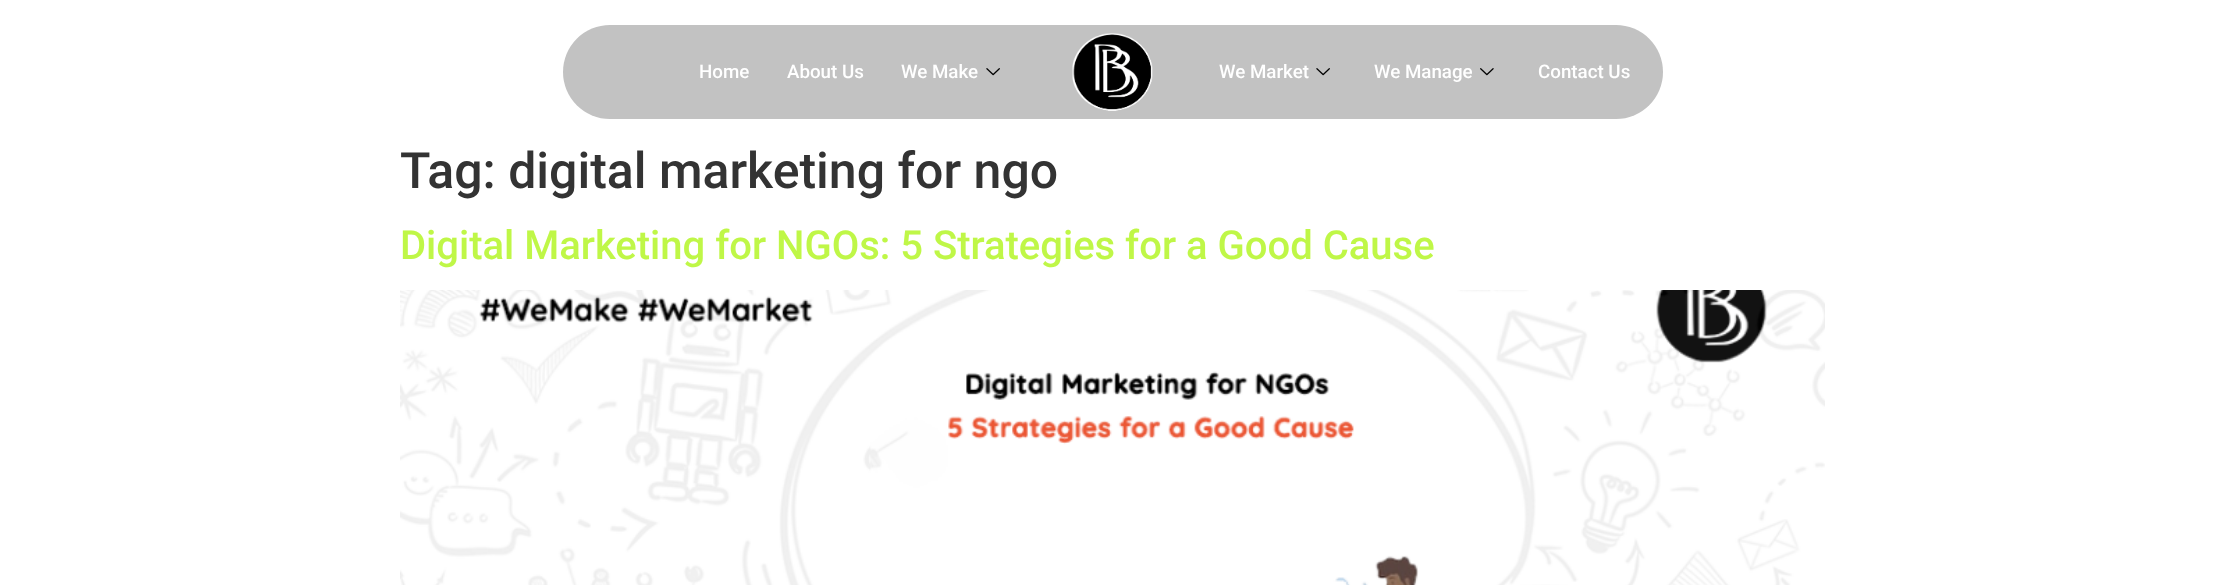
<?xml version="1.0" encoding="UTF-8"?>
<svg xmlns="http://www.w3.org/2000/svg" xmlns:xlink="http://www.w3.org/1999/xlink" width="2225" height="585">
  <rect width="100%" height="100%" fill="#ffffff" />
  <rect x="563" y="25" width="1100" height="94" rx="47" fill="#c2c2c2" />
  <image x="986" y="68" width="14" height="8" xlink:href="image1.png" />
  <image x="1072" y="33" width="81" height="78" xlink:href="image2.png" />
  <image x="1316" y="68" width="14" height="8" xlink:href="image1.png" />
  <image x="1480" y="68" width="14" height="8" xlink:href="image3.png" />
  <image x="400" y="290" width="1425" height="295" xlink:href="image4.png" />
  <text x="699" y="78" style="font-family: Roboto; font-size: 18.75px; font-weight: 500; fill: #ffffff">Home</text>
  <text x="787" y="78" style="font-family: Roboto; font-size: 18.75px; font-weight: 500; fill: #ffffff">About Us</text>
  <text x="901" y="78" style="font-family: Roboto; font-size: 18.75px; font-weight: 500; fill: #ffffff">We Make</text>
  <text x="1219" y="78" style="font-family: Roboto; font-size: 18.75px; font-weight: 500; fill: #ffffff">We Market</text>
  <text x="1374" y="78" style="font-family: Roboto; font-size: 18.75px; font-weight: 500; fill: #ffffff">We Manage</text>
  <text x="1538" y="78" style="font-family: Roboto; font-size: 18.75px; font-weight: 500; fill: #ffffff">Contact Us</text>
  <text x="400" y="188" style="font-family: Roboto; font-size: 50px; font-weight: 500; fill: #333333">Tag: digital marketing for ngo</text>
  <text x="400" y="259" style="font-family: Roboto; font-size: 40px; font-weight: 500; fill: #bff747">Digital Marketing for NGOs: 5 Strategies for a Good Cause</text>
</svg>
